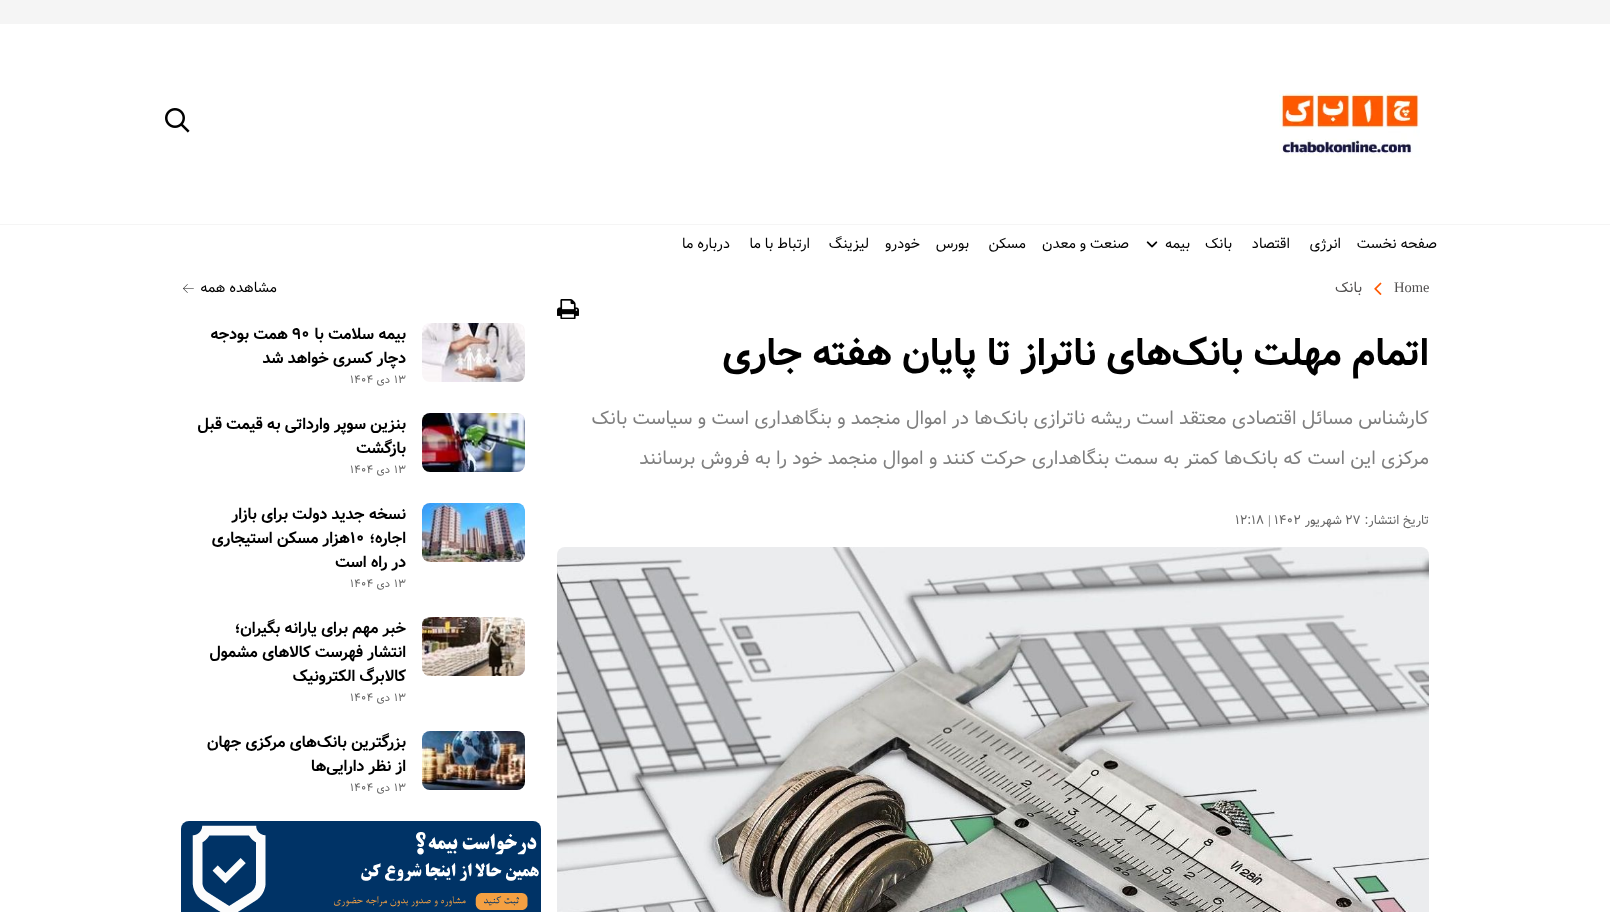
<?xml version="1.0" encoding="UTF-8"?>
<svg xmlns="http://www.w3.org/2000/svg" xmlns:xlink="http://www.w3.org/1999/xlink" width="1610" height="912">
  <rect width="100%" height="100%" fill="#ffffff" />
  <rect width="1610" height="24" fill="#f5f5f5" />
  <rect y="224" width="1610" height="1" fill="#f5f5f5" />
  <image x="1279" y="90" width="141" height="68" xlink:href="image1.png" />
  <image x="165" y="108" width="25" height="25" xlink:href="image2.png" />
  <image x="1146" y="241" width="12" height="7" xlink:href="image3.png" />
  <image x="1374" y="282" width="8" height="13" xlink:href="image4.png" />
  <image x="557" y="299" width="22" height="20" xlink:href="image5.png" />
  <image x="557" y="547" width="872" height="365" xlink:href="image6.png" />
  <image x="183" y="284" width="11" height="9" xlink:href="image7.png" />
  <image x="422" y="323" width="103" height="59" xlink:href="image8.png" />
  <image x="422" y="413" width="103" height="59" xlink:href="image9.png" />
  <image x="422" y="503" width="103" height="59" xlink:href="image10.png" />
  <image x="422" y="617" width="103" height="59" xlink:href="image11.png" />
  <image x="422" y="731" width="103" height="59" xlink:href="image12.png" />
  <image x="181" y="821" width="360" height="91" xlink:href="image13.png" />
  <text x="1437" y="248" style="font-family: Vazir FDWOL; font-size: 14.5px; direction: rtl; fill: #000000">صفحه نخست</text>
  <text x="1341" y="248" style="font-family: Vazir FDWOL; font-size: 14.5px; direction: rtl; fill: #000000">انرژی</text>
  <text x="1290" y="248" style="font-family: Vazir FDWOL; font-size: 14.5px; direction: rtl; fill: #000000">اقتصاد</text>
  <text x="1232" y="248" style="font-family: Vazir FDWOL; font-size: 14.5px; direction: rtl; fill: #000000">بانک</text>
  <text x="1190" y="248" style="font-family: Vazir FDWOL; font-size: 14.5px; direction: rtl; fill: #000000">بیمه</text>
  <text x="1129" y="248" style="font-family: Vazir FDWOL; font-size: 14.5px; direction: rtl; fill: #000000">صنعت و معدن</text>
  <text x="1026" y="248" style="font-family: Vazir FDWOL; font-size: 14.5px; direction: rtl; fill: #000000">مسکن</text>
  <text x="969" y="248" style="font-family: Vazir FDWOL; font-size: 14.5px; direction: rtl; fill: #000000">بورس</text>
  <text x="920" y="248" style="font-family: Vazir FDWOL; font-size: 14.5px; direction: rtl; fill: #000000">خودرو</text>
  <text x="869" y="248" style="font-family: Vazir FDWOL; font-size: 14.5px; direction: rtl; fill: #000000">لیزینگ</text>
  <text x="810" y="248" style="font-family: Vazir FDWOL; font-size: 14.5px; direction: rtl; fill: #000000">ارتباط با ما</text>
  <text x="730" y="248" style="font-family: Vazir FDWOL; font-size: 14.5px; direction: rtl; fill: #000000">درباره ما</text>
  <text x="1394" y="292" style="font-family: Liberation Serif; font-size: 14.5px; fill: #504e4e">Home</text>
  <text x="1362" y="292" style="font-family: Vazir FDWOL; font-size: 14.5px; direction: rtl; fill: #504e4e">بانک</text>
  <text x="1429" y="365" style="font-family: Vazir FDWOL; font-size: 38.4px; font-weight: bold; direction: rtl; fill: #000000">اتمام مهلت بانک‌های ناتراز تا پایان هفته جاری</text>
  <text x="1429" y="424" style="font-family: Vazir FDWOL; font-size: 19.2px; direction: rtl; fill: #808080">کارشناس مسائل اقتصادی معتقد است ریشه ناترازی بانک‌ها در اموال منجمد و بنگاهداری است و سیاست بانک</text>
  <text x="1429" y="464" style="font-family: Vazir FDWOL; font-size: 19.2px; direction: rtl; fill: #808080">مرکزی این است که بانک‌ها کمتر به سمت بنگاهداری حرکت کنند و اموال منجمد خود را به فروش برسانند</text>
  <text x="1429" y="524" style="font-family: Vazir FDWOL; font-size: 12.75px; direction: rtl; fill: #666666">تاریخ انتشار:</text>
  <text x="1345" y="524" style="font-family: Vazir FDWOL; font-size: 12.75px; fill: #666666">۲۷</text>
  <text x="1342" y="524" style="font-family: Vazir FDWOL; font-size: 12.75px; direction: rtl; fill: #666666">شهریور</text>
  <text x="1274" y="524" style="font-family: Vazir FDWOL; font-size: 12.75px; fill: #666666">۱۴۰۲</text>
  <text x="1268" y="524" style="font-family: Liberation Serif; font-size: 12.75px; fill: #666666">|</text>
  <text x="1235" y="524" style="font-family: Vazir FDWOL; font-size: 12.75px; fill: #666666">۱۲:۱۸</text>
  <text x="277" y="292" style="font-family: Vazir FDWOL; font-size: 14.5px; direction: rtl; fill: #000000">مشاهده همه</text>
  <text x="406" y="339" style="font-family: Vazir FDWOL; font-size: 16px; font-weight: bold; direction: rtl; fill: #000000">بیمه سلامت با</text>
  <text x="292" y="339" style="font-family: Vazir FDWOL; font-size: 16px; font-weight: bold; fill: #000000">۹۰</text>
  <text x="288" y="339" style="font-family: Vazir FDWOL; font-size: 16px; font-weight: bold; direction: rtl; fill: #000000">همت بودجه</text>
  <text x="406" y="363" style="font-family: Vazir FDWOL; font-size: 16px; font-weight: bold; direction: rtl; fill: #000000">دچار کسری خواهد شد</text>
  <text x="394" y="383" style="font-family: Vazir FDWOL; font-size: 11px; fill: #666666">۱۳</text>
  <text x="390" y="383" style="font-family: Vazir FDWOL; font-size: 11px; direction: rtl; fill: #666666">دی</text>
  <text x="350" y="383" style="font-family: Vazir FDWOL; font-size: 11px; fill: #666666">۱۴۰۴</text>
  <text x="406" y="429" style="font-family: Vazir FDWOL; font-size: 16px; font-weight: bold; direction: rtl; fill: #000000">بنزین سوپر وارداتی به قیمت قبل</text>
  <text x="406" y="453" style="font-family: Vazir FDWOL; font-size: 16px; font-weight: bold; direction: rtl; fill: #000000">بازگشت</text>
  <text x="394" y="473" style="font-family: Vazir FDWOL; font-size: 11px; fill: #666666">۱۳</text>
  <text x="390" y="473" style="font-family: Vazir FDWOL; font-size: 11px; direction: rtl; fill: #666666">دی</text>
  <text x="350" y="473" style="font-family: Vazir FDWOL; font-size: 11px; fill: #666666">۱۴۰۴</text>
  <text x="406" y="519" style="font-family: Vazir FDWOL; font-size: 16px; font-weight: bold; direction: rtl; fill: #000000">نسخه جدید دولت برای بازار</text>
  <text x="406" y="543" style="font-family: Vazir FDWOL; font-size: 16px; font-weight: bold; direction: rtl; fill: #000000">اجاره؛</text>
  <text x="350" y="543" style="font-family: Vazir FDWOL; font-size: 16px; font-weight: bold; fill: #000000">۱۰</text>
  <text x="350" y="543" style="font-family: Vazir FDWOL; font-size: 16px; font-weight: bold; direction: rtl; fill: #000000">‌هزار مسکن استیجاری</text>
  <text x="406" y="567" style="font-family: Vazir FDWOL; font-size: 16px; font-weight: bold; direction: rtl; fill: #000000">در راه است</text>
  <text x="394" y="587" style="font-family: Vazir FDWOL; font-size: 11px; fill: #666666">۱۳</text>
  <text x="390" y="587" style="font-family: Vazir FDWOL; font-size: 11px; direction: rtl; fill: #666666">دی</text>
  <text x="350" y="587" style="font-family: Vazir FDWOL; font-size: 11px; fill: #666666">۱۴۰۴</text>
  <text x="406" y="633" style="font-family: Vazir FDWOL; font-size: 16px; font-weight: bold; direction: rtl; fill: #000000">خبر مهم برای یارانه بگیران؛</text>
  <text x="406" y="657" style="font-family: Vazir FDWOL; font-size: 16px; font-weight: bold; direction: rtl; fill: #000000">انتشار فهرست کالاهای مشمول</text>
  <text x="406" y="681" style="font-family: Vazir FDWOL; font-size: 16px; font-weight: bold; direction: rtl; fill: #000000">کالابرگ الکترونیک</text>
  <text x="394" y="701" style="font-family: Vazir FDWOL; font-size: 11px; fill: #666666">۱۳</text>
  <text x="390" y="701" style="font-family: Vazir FDWOL; font-size: 11px; direction: rtl; fill: #666666">دی</text>
  <text x="350" y="701" style="font-family: Vazir FDWOL; font-size: 11px; fill: #666666">۱۴۰۴</text>
  <text x="406" y="747" style="font-family: Vazir FDWOL; font-size: 16px; font-weight: bold; direction: rtl; fill: #000000">بزرگترین بانک‌های مرکزی جهان</text>
  <text x="406" y="771" style="font-family: Vazir FDWOL; font-size: 16px; font-weight: bold; direction: rtl; fill: #000000">از نظر دارایی‌ها</text>
  <text x="394" y="791" style="font-family: Vazir FDWOL; font-size: 11px; fill: #666666">۱۳</text>
  <text x="390" y="791" style="font-family: Vazir FDWOL; font-size: 11px; direction: rtl; fill: #666666">دی</text>
  <text x="350" y="791" style="font-family: Vazir FDWOL; font-size: 11px; fill: #666666">۱۴۰۴</text>
</svg>
